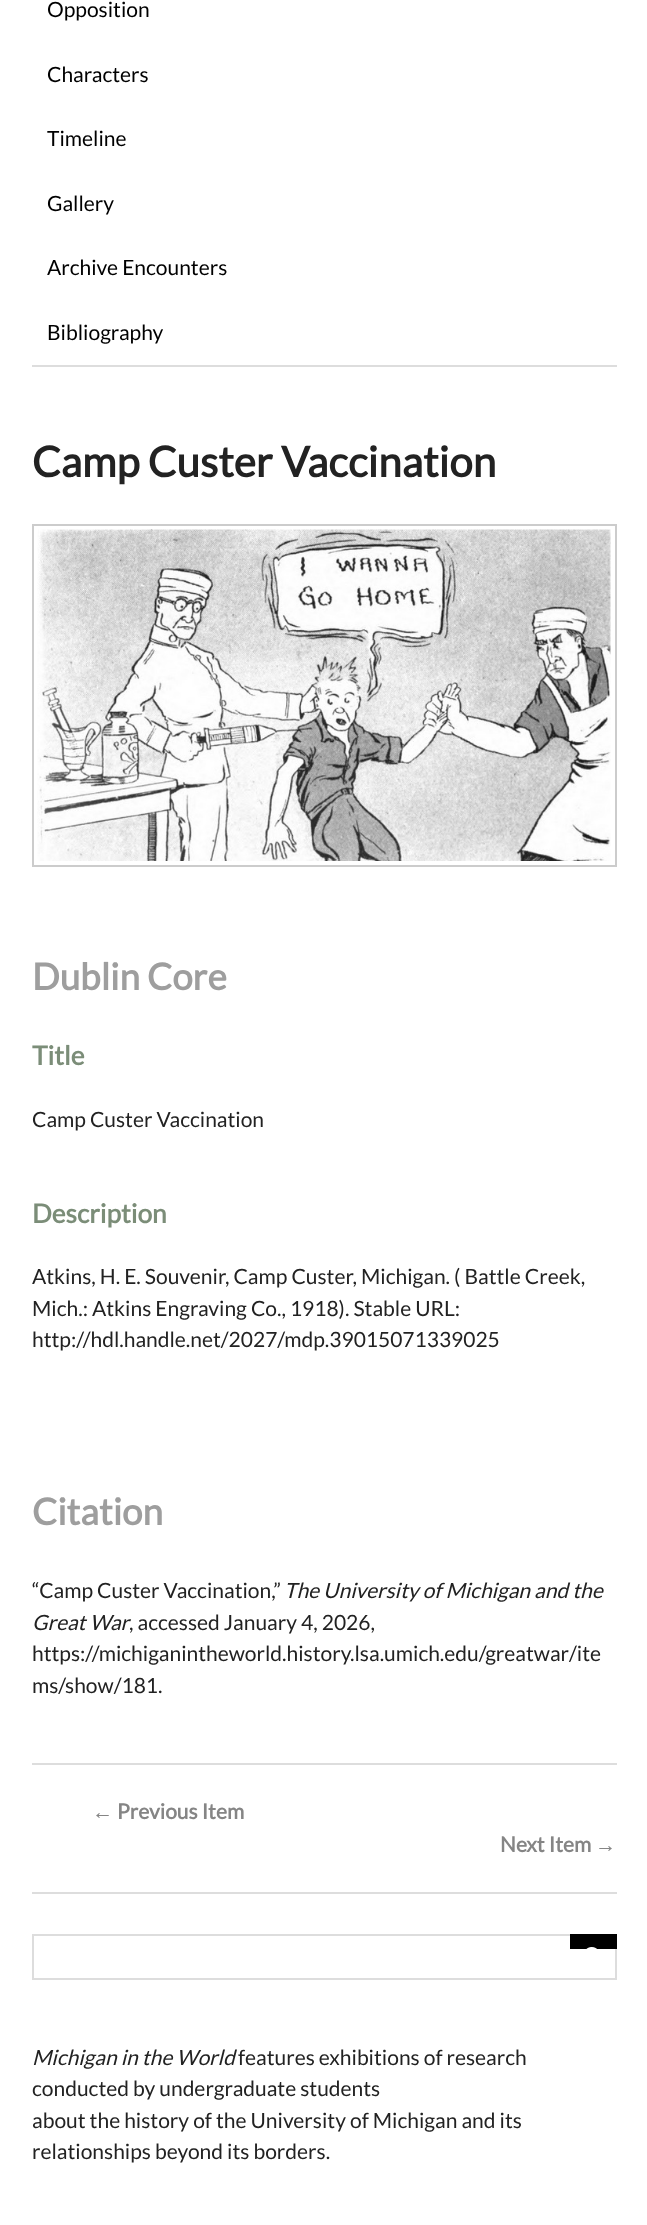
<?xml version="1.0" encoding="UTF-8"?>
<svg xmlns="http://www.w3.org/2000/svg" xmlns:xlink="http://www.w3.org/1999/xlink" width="647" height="2225">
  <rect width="100%" height="100%" fill="#ffffff" />
  <rect x="32" y="365" width="585" height="2" fill="#dddddd" />
  <rect x="32" y="1892" width="585" height="2" fill="#dddddd" />
  <rect x="33" y="525" width="583" height="341" fill="none" stroke="#cccccc" stroke-width="2" />
  <image x="37" y="529" width="574" height="332" xlink:href="image1.png" />
  <rect x="32" y="1763" width="585" height="2" fill="#dddddd" />
  <rect x="33" y="1935" width="583" height="44" fill="none" stroke="#dddddd" stroke-width="2" />
  <rect x="570" y="1934" width="47" height="15" fill="#000000" />
  <image x="586" y="1947" width="11" height="2" xlink:href="image2.png" />
  <text x="47" y="17" style="font-family: Lato; font-size: 21px; fill: #000000">Opposition</text>
  <text x="47" y="82" style="font-family: Lato; font-size: 21px; fill: #000000">Characters</text>
  <text x="47" y="146" style="font-family: Lato; font-size: 21px; fill: #000000">Timeline</text>
  <text x="47" y="211" style="font-family: Lato; font-size: 21px; fill: #000000">Gallery</text>
  <text x="47" y="275" style="font-family: Lato; font-size: 21px; fill: #000000">Archive Encounters</text>
  <text x="47" y="340" style="font-family: Lato; font-size: 21px; fill: #000000">Bibliography</text>
  <text x="32" y="477" style="font-family: Lato; font-size: 42px; font-weight: bold; fill: #222222">Camp Custer Vaccination</text>
  <text x="32" y="990" style="font-family: Lato; font-size: 36.75px; font-weight: bold; fill: #9e9e9e">Dublin Core</text>
  <text x="32" y="1065" style="font-family: Lato; font-size: 26.25px; font-weight: bold; fill: #7b8d78">Title</text>
  <text x="32" y="1127" style="font-family: Lato; font-size: 21px; fill: #222222">Camp Custer Vaccination</text>
  <text x="32" y="1223" style="font-family: Lato; font-size: 26.25px; font-weight: bold; fill: #7b8d78">Description</text>
  <text x="32" y="1284" style="font-family: Lato; font-size: 21px; fill: #222222">Atkins, H. E. Souvenir, Camp Custer, Michigan. ( Battle Creek,</text>
  <text x="32" y="1316" style="font-family: Lato; font-size: 21px; fill: #222222">Mich.: Atkins Engraving Co., 1918). Stable URL:</text>
  <text x="32" y="1347" style="font-family: Lato; font-size: 21px; fill: #222222">http://hdl.handle.net/2027/mdp.39015071339025</text>
  <text x="32" y="1525" style="font-family: Lato; font-size: 36.75px; font-weight: bold; fill: #9e9e9e">Citation</text>
  <text x="32" y="1598" style="font-family: Lato; font-size: 21px; fill: #222222">“Camp Custer Vaccination,”</text>
  <text x="284" y="1598" style="font-family: Lato; font-size: 21px; font-style: italic; fill: #222222">The University of Michigan and the</text>
  <text x="32" y="1630" style="font-family: Lato; font-size: 21px; font-style: italic; fill: #222222">Great War</text>
  <text x="129" y="1630" style="font-family: Lato; font-size: 21px; fill: #222222">, accessed January 4, 2026,</text>
  <text x="32" y="1661" style="font-family: Lato; font-size: 21px; fill: #222222">https://michiganintheworld.history.lsa.umich.edu/greatwar/ite</text>
  <text x="32" y="1693" style="font-family: Lato; font-size: 21px; fill: #222222">ms/show/181.</text>
  <text x="92" y="1819" style="font-family: Liberation Sans; font-size: 21px; font-weight: bold; fill: #858585">←</text>
  <text x="117" y="1819" style="font-family: Lato; font-size: 21px; font-weight: bold; fill: #858585">Previous Item</text>
  <text x="500" y="1852" style="font-family: Lato; font-size: 21px; font-weight: bold; fill: #858585">Next Item</text>
  <text x="595" y="1852" style="font-family: Liberation Sans; font-size: 21px; font-weight: bold; fill: #858585">→</text>
  <text x="32" y="2065" style="font-family: Lato; font-size: 21px; font-style: italic; fill: #222222">Michigan in the World</text>
  <text x="238" y="2065" style="font-family: Lato; font-size: 21px; fill: #222222">features exhibitions of research</text>
  <text x="32" y="2096" style="font-family: Lato; font-size: 21px; fill: #222222">conducted by undergraduate students</text>
  <text x="32" y="2128" style="font-family: Lato; font-size: 21px; fill: #222222">about the history of the University of Michigan and its</text>
  <text x="32" y="2159" style="font-family: Lato; font-size: 21px; fill: #222222">relationships beyond its borders.</text>
</svg>
